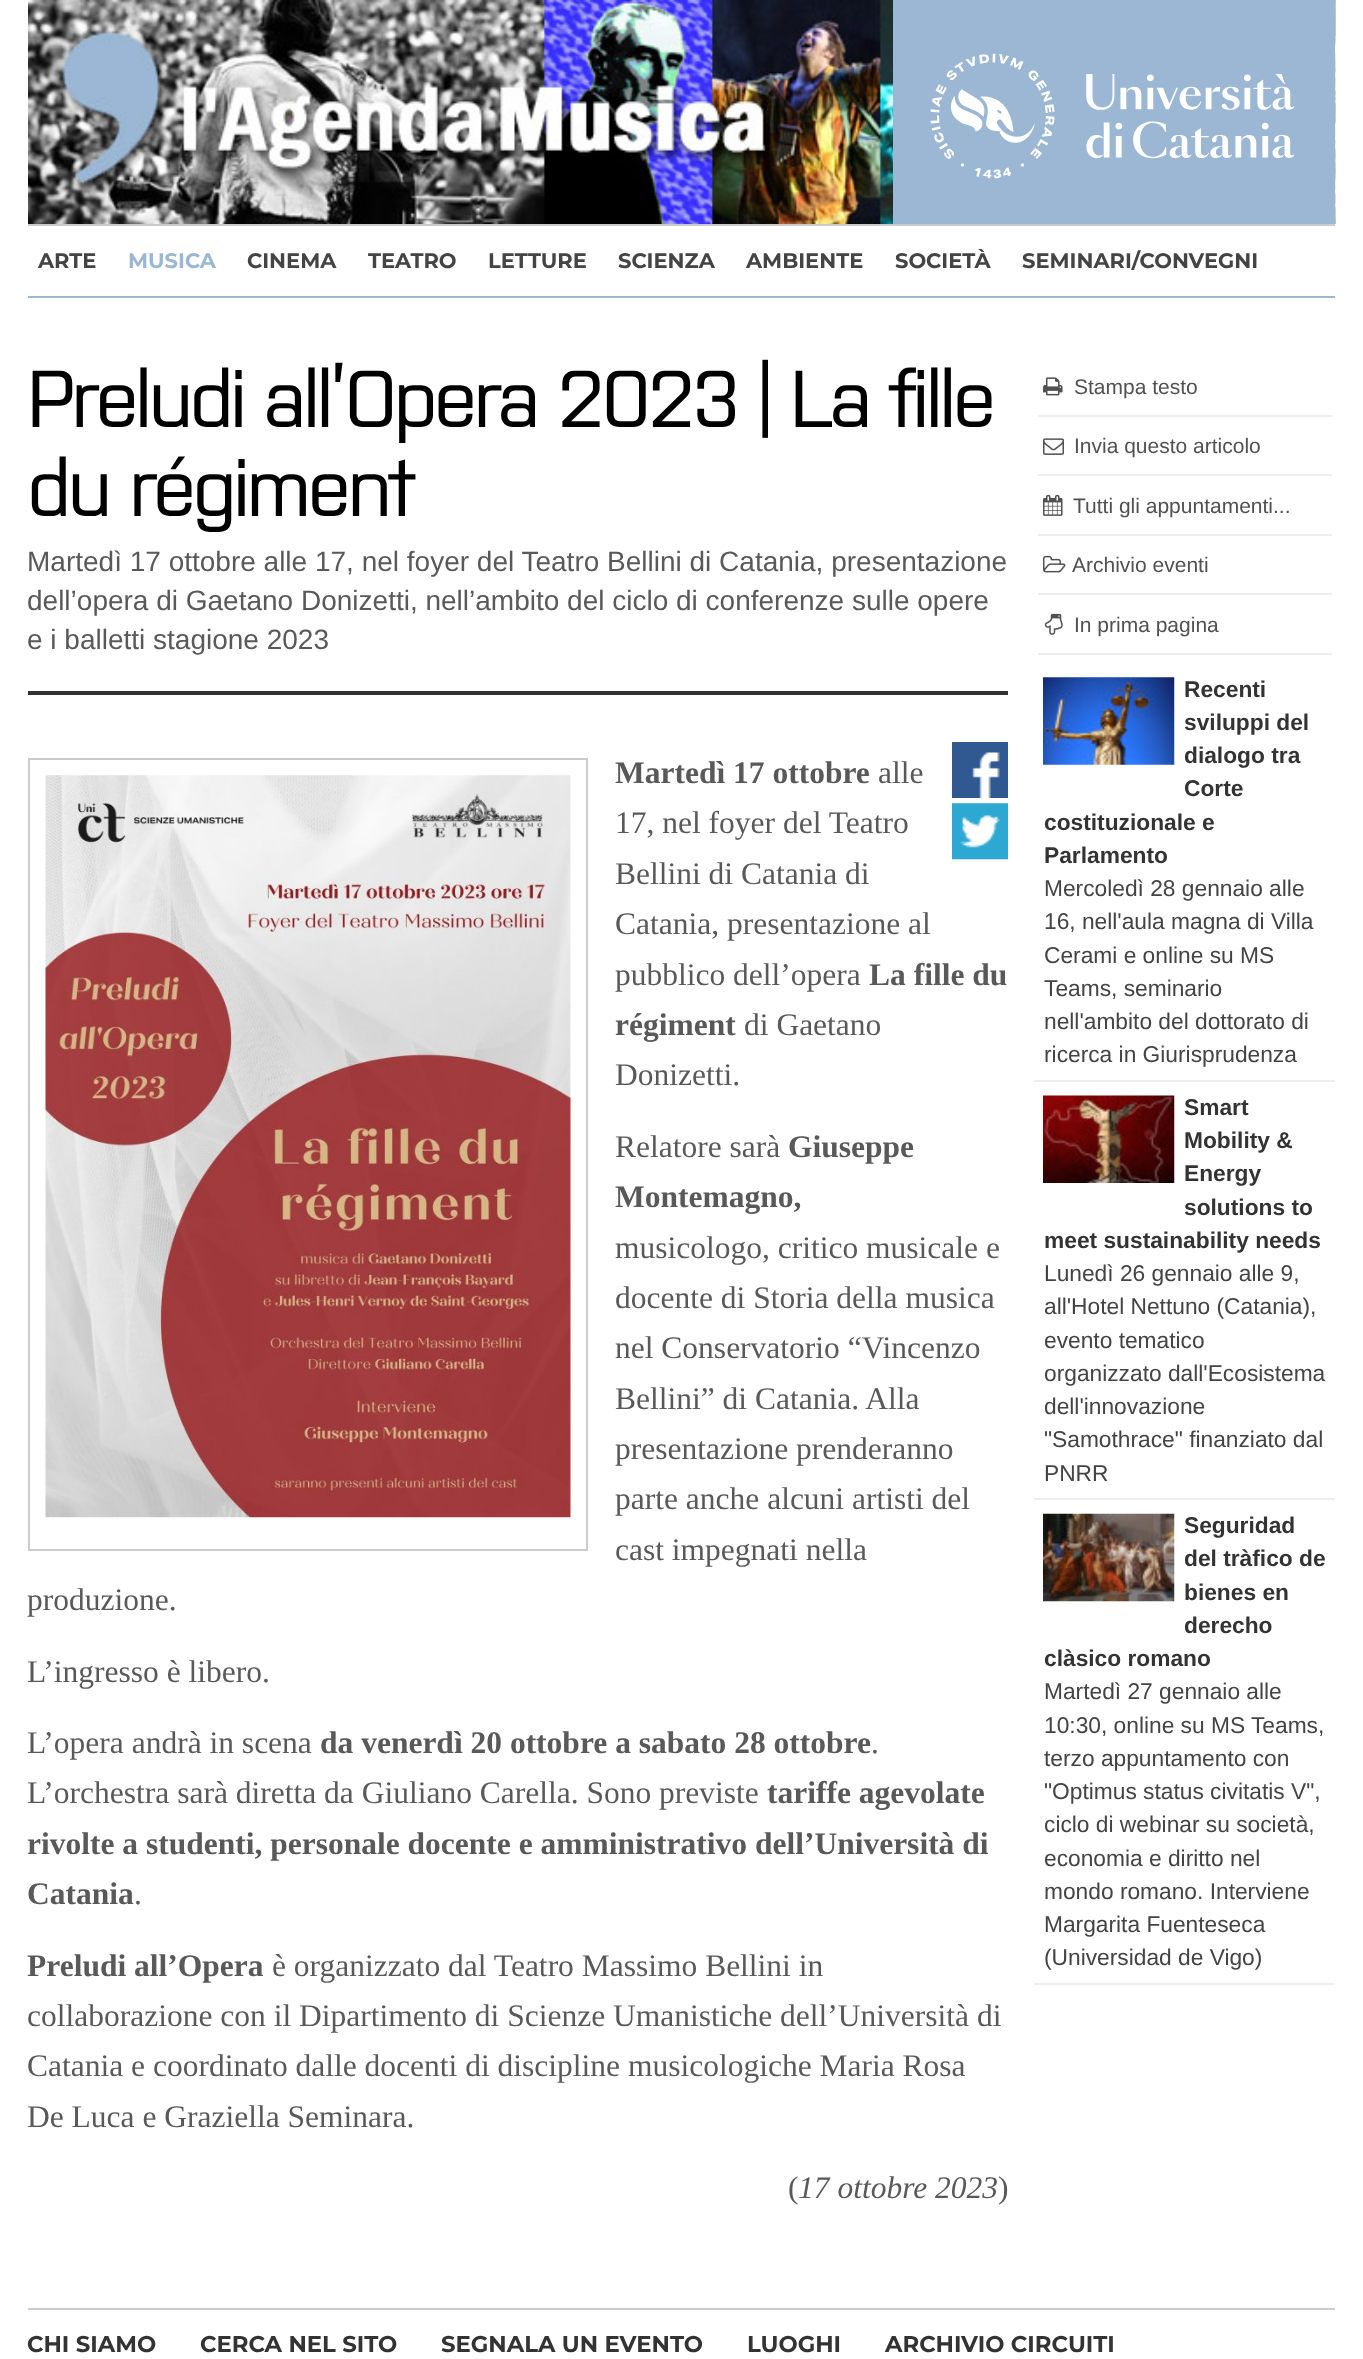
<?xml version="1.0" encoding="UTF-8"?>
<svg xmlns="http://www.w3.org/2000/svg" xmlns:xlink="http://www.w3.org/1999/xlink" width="1363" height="2359">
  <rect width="100%" height="100%" fill="#ffffff" />
  <image x="28" y="0" width="1308" height="224" xlink:href="image1.png" />
  <rect x="893" width="442" height="224" fill="#9bb7d4" />
  <image x="930" y="53" width="365" height="126" xlink:href="image2.png" />
  <rect x="28" y="224" width="1307" height="2" fill="#cccccc" />
  <rect x="28" y="296" width="1307" height="2" fill="#9bb7d4" />
  <rect x="28" y="691" width="980" height="4" fill="#333333" />
  <image x="952" y="742" width="56" height="56" xlink:href="image3.png" />
  <image x="952" y="803" width="56" height="57" xlink:href="image4.png" />
  <rect x="29" y="759" width="558" height="791" fill="none" stroke="#cccccc" stroke-width="2" />
  <image x="45" y="775" width="526" height="743" xlink:href="image5.png" />
  <rect x="1038" y="415" width="294" height="2" fill="#eeeeee" />
  <image x="1043" y="377" width="20" height="19" xlink:href="image6.png" />
  <rect x="1038" y="474" width="294" height="2" fill="#eeeeee" />
  <image x="1043" y="438" width="21" height="17" xlink:href="image7.png" />
  <rect x="1038" y="534" width="294" height="2" fill="#eeeeee" />
  <image x="1043" y="494" width="20" height="22" xlink:href="image8.png" />
  <rect x="1038" y="593" width="294" height="2" fill="#eeeeee" />
  <image x="1043" y="555" width="23" height="18" xlink:href="image9.png" />
  <rect x="1038" y="653" width="294" height="2" fill="#eeeeee" />
  <image x="1044" y="613" width="19" height="22" xlink:href="image10.png" />
  <rect x="1034" y="1080" width="301" height="2" fill="#eeeeee" />
  <image x="1043" y="677" width="132" height="88" xlink:href="image11.png" />
  <rect x="1034" y="1498" width="301" height="2" fill="#eeeeee" />
  <image x="1043" y="1095" width="132" height="88" xlink:href="image12.png" />
  <rect x="1034" y="1983" width="301" height="2" fill="#eeeeee" />
  <image x="1043" y="1513" width="132" height="89" xlink:href="image13.png" />
  <rect x="28" y="2308" width="1307" height="2" fill="#cccccc" />
  <text x="38" y="268" style="font-family: Montserrat; font-size: 21px; font-weight: 100; fill: #444444">ARTE</text>
  <text x="128" y="268" style="font-family: Montserrat; font-size: 21px; font-weight: 100; fill: #9bb7d4">MUSICA</text>
  <text x="247" y="268" style="font-family: Montserrat; font-size: 21px; font-weight: 100; fill: #444444">CINEMA</text>
  <text x="368" y="268" style="font-family: Montserrat; font-size: 21px; font-weight: 100; fill: #444444">TEATRO</text>
  <text x="488" y="268" style="font-family: Montserrat; font-size: 21px; font-weight: 100; fill: #444444">LETTURE</text>
  <text x="618" y="268" style="font-family: Montserrat; font-size: 21px; font-weight: 100; fill: #444444">SCIENZA</text>
  <text x="746" y="268" style="font-family: Montserrat; font-size: 21px; font-weight: 100; fill: #444444">AMBIENTE</text>
  <text x="895" y="268" style="font-family: Montserrat; font-size: 21px; font-weight: 100; fill: #444444">SOCIETÀ</text>
  <text x="1022" y="268" style="font-family: Montserrat; font-size: 21px; font-weight: 100; fill: #444444">SEMINARI/CONVEGNI</text>
  <text x="27" y="427" style="font-family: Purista; font-size: 80.5px; letter-spacing: -4px; fill: #000000">Preludi all’Opera 2023 | La fille</text>
  <text x="27" y="516" style="font-family: Purista; font-size: 80.5px; letter-spacing: -4px; fill: #000000">du régiment</text>
  <text x="27" y="571" style="font-family: Liberation Sans; font-size: 28px; fill: #595959">Martedì 17 ottobre alle 17, nel foyer del Teatro Bellini di Catania, presentazione</text>
  <text x="27" y="610" style="font-family: Liberation Sans; font-size: 28px; fill: #595959">dell’opera di Gaetano Donizetti, nell’ambito del ciclo di conferenze sulle opere</text>
  <text x="27" y="649" style="font-family: Liberation Sans; font-size: 28px; fill: #595959">e i balletti stagione 2023</text>
  <text x="615" y="783" style="font-family: Liberation Serif; font-size: 31.5px; font-weight: bold; fill: #595959">Martedì 17 ottobre</text>
  <text x="878" y="783" style="font-family: Liberation Serif; font-size: 31.5px; fill: #595959">alle</text>
  <text x="615" y="833" style="font-family: Liberation Serif; font-size: 31.5px; fill: #595959">17, nel foyer del Teatro</text>
  <text x="615" y="884" style="font-family: Liberation Serif; font-size: 31.5px; fill: #595959">Bellini di Catania di</text>
  <text x="615" y="934" style="font-family: Liberation Serif; font-size: 31.5px; fill: #595959">Catania, presentazione al</text>
  <text x="615" y="985" style="font-family: Liberation Serif; font-size: 31.5px; fill: #595959">pubblico dell’opera</text>
  <text x="869" y="985" style="font-family: Liberation Serif; font-size: 31.5px; font-weight: bold; fill: #595959">La fille du</text>
  <text x="615" y="1035" style="font-family: Liberation Serif; font-size: 31.5px; font-weight: bold; fill: #595959">régiment</text>
  <text x="744" y="1035" style="font-family: Liberation Serif; font-size: 31.5px; fill: #595959">di Gaetano</text>
  <text x="615" y="1085" style="font-family: Liberation Serif; font-size: 31.5px; fill: #595959">Donizetti.</text>
  <text x="615" y="1157" style="font-family: Liberation Serif; font-size: 31.5px; fill: #595959">Relatore sarà</text>
  <text x="788" y="1157" style="font-family: Liberation Serif; font-size: 31.5px; font-weight: bold; fill: #595959">Giuseppe</text>
  <text x="615" y="1207" style="font-family: Liberation Serif; font-size: 31.5px; font-weight: bold; fill: #595959">Montemagno,</text>
  <text x="615" y="1258" style="font-family: Liberation Serif; font-size: 31.5px; fill: #595959">musicologo, critico musicale e</text>
  <text x="615" y="1308" style="font-family: Liberation Serif; font-size: 31.5px; fill: #595959">docente di Storia della musica</text>
  <text x="615" y="1358" style="font-family: Liberation Serif; font-size: 31.5px; fill: #595959">nel Conservatorio “Vincenzo</text>
  <text x="615" y="1409" style="font-family: Liberation Serif; font-size: 31.5px; fill: #595959">Bellini” di Catania. Alla</text>
  <text x="615" y="1459" style="font-family: Liberation Serif; font-size: 31.5px; fill: #595959">presentazione prenderanno</text>
  <text x="615" y="1509" style="font-family: Liberation Serif; font-size: 31.5px; fill: #595959">parte anche alcuni artisti del</text>
  <text x="615" y="1560" style="font-family: Liberation Serif; font-size: 31.5px; fill: #595959">cast impegnati nella</text>
  <text x="27" y="1610" style="font-family: Liberation Serif; font-size: 31.5px; fill: #595959">produzione.</text>
  <text x="27" y="1682" style="font-family: Liberation Serif; font-size: 31.5px; fill: #595959">L’ingresso è libero.</text>
  <text x="27" y="1753" style="font-family: Liberation Serif; font-size: 31.5px; fill: #595959">L’opera andrà in scena</text>
  <text x="320" y="1753" style="font-family: Liberation Serif; font-size: 31.5px; font-weight: bold; fill: #595959">da venerdì 20 ottobre a sabato 28 ottobre</text>
  <text x="871" y="1753" style="font-family: Liberation Serif; font-size: 31.5px; fill: #595959">.</text>
  <text x="27" y="1803" style="font-family: Liberation Serif; font-size: 31.5px; fill: #595959">L’orchestra sarà diretta da Giuliano Carella. Sono previste</text>
  <text x="767" y="1803" style="font-family: Liberation Serif; font-size: 31.5px; font-weight: bold; fill: #595959">tariffe agevolate</text>
  <text x="27" y="1854" style="font-family: Liberation Serif; font-size: 31.5px; font-weight: bold; fill: #595959">rivolte a studenti, personale docente e amministrativo dell’Università di</text>
  <text x="27" y="1904" style="font-family: Liberation Serif; font-size: 31.5px; font-weight: bold; fill: #595959">Catania</text>
  <text x="134" y="1904" style="font-family: Liberation Serif; font-size: 31.5px; fill: #595959">.</text>
  <text x="27" y="1976" style="font-family: Liberation Serif; font-size: 31.5px; font-weight: bold; fill: #595959">Preludi all’Opera</text>
  <text x="272" y="1976" style="font-family: Liberation Serif; font-size: 31.5px; fill: #595959">è organizzato dal Teatro Massimo Bellini in</text>
  <text x="27" y="2026" style="font-family: Liberation Serif; font-size: 31.5px; fill: #595959">collaborazione con il Dipartimento di Scienze Umanistiche dell’Università di</text>
  <text x="27" y="2076" style="font-family: Liberation Serif; font-size: 31.5px; fill: #595959">Catania e coordinato dalle docenti di discipline musicologiche Maria Rosa</text>
  <text x="27" y="2127" style="font-family: Liberation Serif; font-size: 31.5px; fill: #595959">De Luca e Graziella Seminara.</text>
  <text x="788" y="2198" style="font-family: Liberation Serif; font-size: 31.5px; fill: #595959">(</text>
  <text x="798" y="2198" style="font-family: Liberation Serif; font-size: 31.5px; font-style: italic; fill: #595959">17 ottobre 2023</text>
  <text x="998" y="2198" style="font-family: Liberation Serif; font-size: 31.5px; fill: #595959">)</text>
  <text x="1074" y="394" style="font-family: Liberation Sans; font-size: 21px; fill: #515151">Stampa testo</text>
  <text x="1074" y="453" style="font-family: Liberation Sans; font-size: 21px; fill: #515151">Invia questo articolo</text>
  <text x="1073" y="513" style="font-family: Liberation Sans; font-size: 21px; fill: #515151">Tutti gli appuntamenti...</text>
  <text x="1072" y="572" style="font-family: Liberation Sans; font-size: 21px; fill: #515151">Archivio eventi</text>
  <text x="1074" y="632" style="font-family: Liberation Sans; font-size: 21px; fill: #515151">In prima pagina</text>
  <text x="1184" y="697" style="font-family: Liberation Sans; font-size: 22.75px; font-weight: bold; fill: #333333">Recenti</text>
  <text x="1184" y="730" style="font-family: Liberation Sans; font-size: 22.75px; font-weight: bold; fill: #333333">sviluppi del</text>
  <text x="1184" y="763" style="font-family: Liberation Sans; font-size: 22.75px; font-weight: bold; fill: #333333">dialogo tra</text>
  <text x="1184" y="796" style="font-family: Liberation Sans; font-size: 22.75px; font-weight: bold; fill: #333333">Corte</text>
  <text x="1044" y="830" style="font-family: Liberation Sans; font-size: 22.75px; font-weight: bold; fill: #333333">costituzionale e</text>
  <text x="1044" y="863" style="font-family: Liberation Sans; font-size: 22.75px; font-weight: bold; fill: #333333">Parlamento</text>
  <text x="1044" y="896" style="font-family: Liberation Sans; font-size: 22.75px; fill: #444444">Mercoledì 28 gennaio alle</text>
  <text x="1044" y="929" style="font-family: Liberation Sans; font-size: 22.75px; fill: #444444">16, nell'aula magna di Villa</text>
  <text x="1044" y="963" style="font-family: Liberation Sans; font-size: 22.75px; fill: #444444">Cerami e online su MS</text>
  <text x="1044" y="996" style="font-family: Liberation Sans; font-size: 22.75px; fill: #444444">Teams, seminario</text>
  <text x="1044" y="1029" style="font-family: Liberation Sans; font-size: 22.75px; fill: #444444">nell'ambito del dottorato di</text>
  <text x="1044" y="1062" style="font-family: Liberation Sans; font-size: 22.75px; fill: #444444">ricerca in Giurisprudenza</text>
  <text x="1184" y="1115" style="font-family: Liberation Sans; font-size: 22.75px; font-weight: bold; fill: #333333">Smart</text>
  <text x="1184" y="1148" style="font-family: Liberation Sans; font-size: 22.75px; font-weight: bold; fill: #333333">Mobility &amp;</text>
  <text x="1184" y="1181" style="font-family: Liberation Sans; font-size: 22.75px; font-weight: bold; fill: #333333">Energy</text>
  <text x="1184" y="1215" style="font-family: Liberation Sans; font-size: 22.75px; font-weight: bold; fill: #333333">solutions to</text>
  <text x="1044" y="1248" style="font-family: Liberation Sans; font-size: 22.75px; font-weight: bold; fill: #333333">meet sustainability needs</text>
  <text x="1044" y="1281" style="font-family: Liberation Sans; font-size: 22.75px; fill: #444444">Lunedì 26 gennaio alle 9,</text>
  <text x="1044" y="1314" style="font-family: Liberation Sans; font-size: 22.75px; fill: #444444">all'Hotel Nettuno (Catania),</text>
  <text x="1044" y="1348" style="font-family: Liberation Sans; font-size: 22.75px; fill: #444444">evento tematico</text>
  <text x="1044" y="1381" style="font-family: Liberation Sans; font-size: 22.75px; fill: #444444">organizzato dall'Ecosistema</text>
  <text x="1044" y="1414" style="font-family: Liberation Sans; font-size: 22.75px; fill: #444444">dell'innovazione</text>
  <text x="1044" y="1447" style="font-family: Liberation Sans; font-size: 22.75px; fill: #444444">"Samothrace" finanziato dal</text>
  <text x="1044" y="1481" style="font-family: Liberation Sans; font-size: 22.75px; fill: #444444">PNRR</text>
  <text x="1184" y="1533" style="font-family: Liberation Sans; font-size: 22.75px; font-weight: bold; fill: #333333">Seguridad</text>
  <text x="1184" y="1566" style="font-family: Liberation Sans; font-size: 22.75px; font-weight: bold; fill: #333333">del tràfico de</text>
  <text x="1184" y="1600" style="font-family: Liberation Sans; font-size: 22.75px; font-weight: bold; fill: #333333">bienes en</text>
  <text x="1184" y="1633" style="font-family: Liberation Sans; font-size: 22.75px; font-weight: bold; fill: #333333">derecho</text>
  <text x="1044" y="1666" style="font-family: Liberation Sans; font-size: 22.75px; font-weight: bold; fill: #333333">clàsico romano</text>
  <text x="1044" y="1699" style="font-family: Liberation Sans; font-size: 22.75px; fill: #444444">Martedì 27 gennaio alle</text>
  <text x="1044" y="1733" style="font-family: Liberation Sans; font-size: 22.75px; fill: #444444">10:30, online su MS Teams,</text>
  <text x="1044" y="1766" style="font-family: Liberation Sans; font-size: 22.75px; fill: #444444">terzo appuntamento con</text>
  <text x="1044" y="1799" style="font-family: Liberation Sans; font-size: 22.75px; fill: #444444">"Optimus status civitatis V",</text>
  <text x="1044" y="1832" style="font-family: Liberation Sans; font-size: 22.75px; fill: #444444">ciclo di webinar su società,</text>
  <text x="1044" y="1866" style="font-family: Liberation Sans; font-size: 22.75px; fill: #444444">economia e diritto nel</text>
  <text x="1044" y="1899" style="font-family: Liberation Sans; font-size: 22.75px; fill: #444444">mondo romano. Interviene</text>
  <text x="1044" y="1932" style="font-family: Liberation Sans; font-size: 22.75px; fill: #444444">Margarita Fuenteseca</text>
  <text x="1044" y="1965" style="font-family: Liberation Sans; font-size: 22.75px; fill: #444444">(Universidad de Vigo)</text>
  <text x="27" y="2352" style="font-family: Montserrat; font-size: 22.75px; font-weight: 100; fill: #333333">CHI SIAMO</text>
  <text x="200" y="2352" style="font-family: Montserrat; font-size: 22.75px; font-weight: 100; fill: #333333">CERCA NEL SITO</text>
  <text x="441" y="2352" style="font-family: Montserrat; font-size: 22.75px; font-weight: 100; fill: #333333">SEGNALA UN EVENTO</text>
  <text x="747" y="2352" style="font-family: Montserrat; font-size: 22.75px; font-weight: 100; fill: #333333">LUOGHI</text>
  <text x="885" y="2352" style="font-family: Montserrat; font-size: 22.75px; font-weight: 100; fill: #333333">ARCHIVIO CIRCUITI</text>
</svg>
